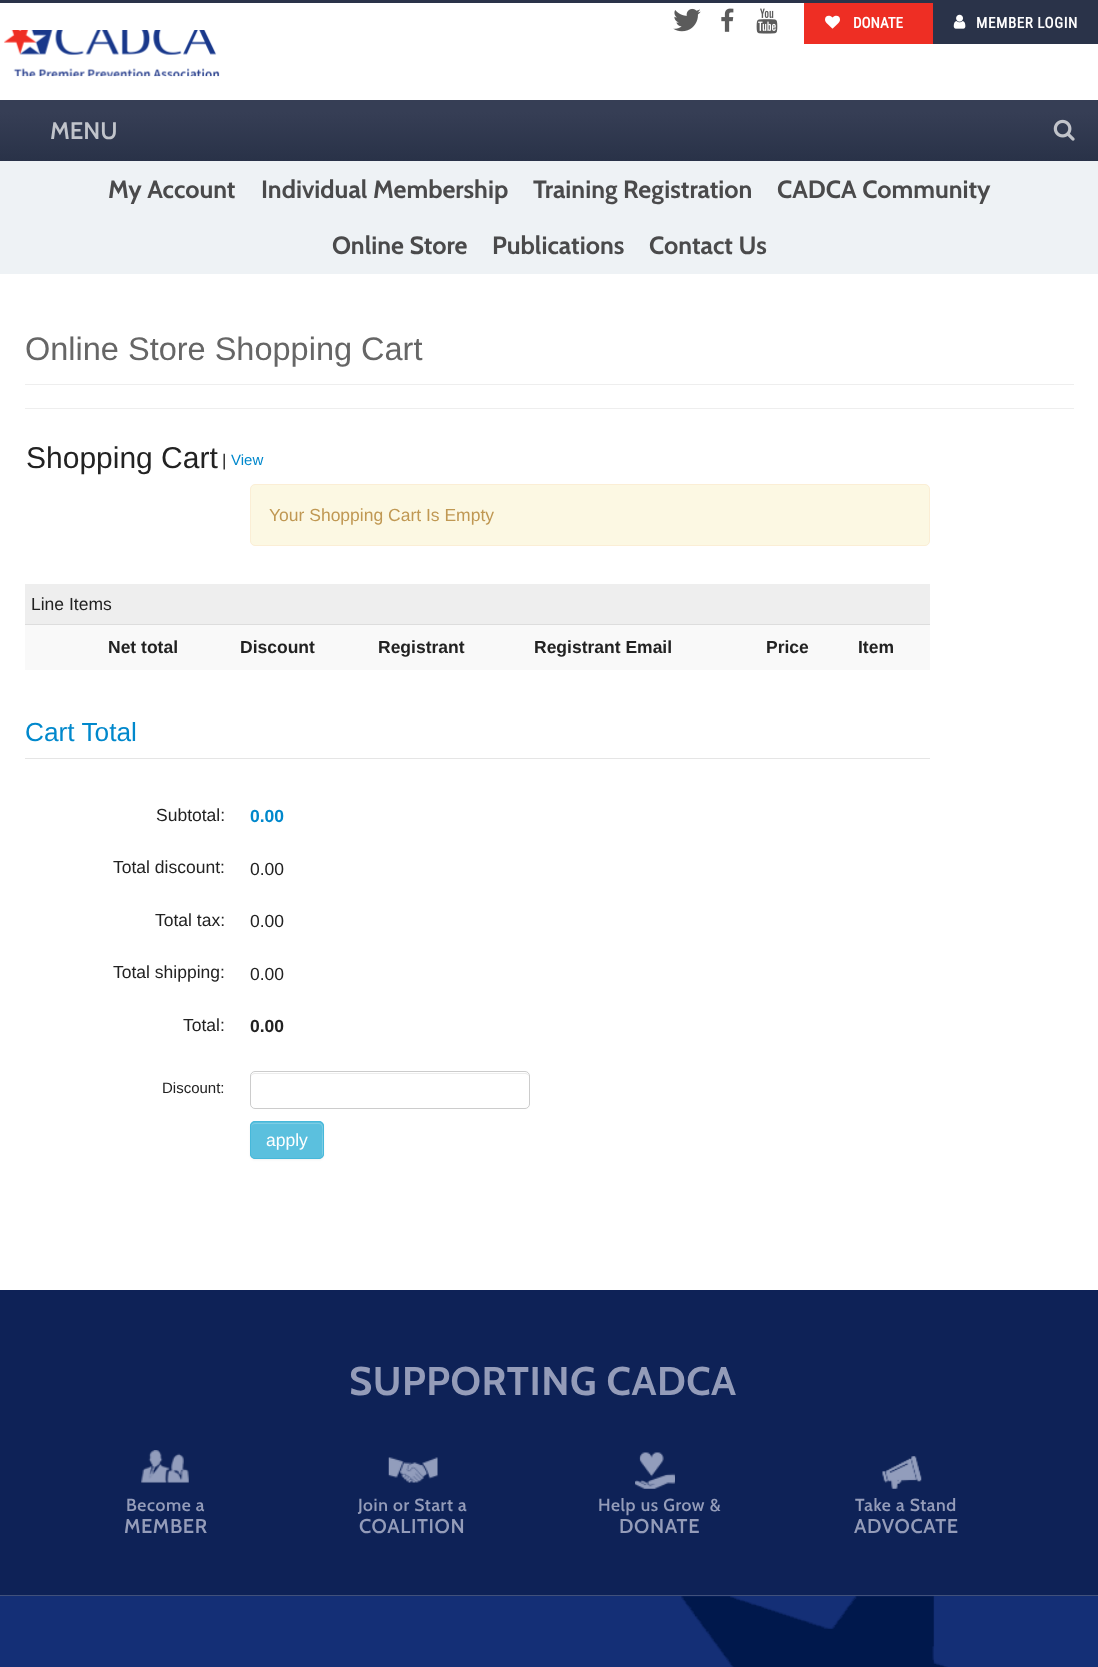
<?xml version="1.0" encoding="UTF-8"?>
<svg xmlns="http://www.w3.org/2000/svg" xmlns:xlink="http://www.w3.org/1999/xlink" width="1098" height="1667">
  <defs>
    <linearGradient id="g1" gradientUnits="userSpaceOnUse" x1="549" y1="161" x2="549" y2="100"><stop offset="0" stop-color="#293248" /><stop offset="0.8" stop-color="#363e55" /></linearGradient>
  </defs>
  <rect width="100%" height="100%" fill="#ffffff" />
  <rect width="1098" height="3" fill="#2a3349" />
  <image x="673" y="8" width="28" height="24" xlink:href="image1.png" />
  <image x="721" y="8" width="13" height="24" xlink:href="image2.png" />
  <image x="756" y="8" width="22" height="26" xlink:href="image3.png" />
  <rect x="804" y="3" width="129" height="41" fill="#ee2e24" />
  <image x="825" y="15" width="15" height="14" xlink:href="image4.png" />
  <rect x="933" y="3" width="165" height="41" fill="#2a3349" />
  <image x="953" y="14" width="13" height="15" xlink:href="image5.png" />
  <image x="4" y="30" width="216" height="47" xlink:href="image6.png" />
  <rect y="100" width="1098" height="61" fill="url(#g1)" />
  <image x="1053" y="119" width="22" height="22" xlink:href="image7.png" />
  <rect y="161" width="1098" height="113" fill="#eef2f5" />
  <rect x="25" y="384" width="1049" height="1" fill="#eeeeee" />
  <rect x="25" y="408" width="1049" height="1" fill="#eeeeee" />
  <rect x="250.5" y="484.5" width="679" height="61" rx="4.5" fill="#fcf8e3" stroke="#fbeed5" />
  <rect x="25" y="584" width="905" height="40" fill="#eeeeee" />
  <rect x="25" y="625" width="905" height="45" fill="#f9f9f9" />
  <rect x="25" y="624" width="905" height="1" fill="#dddddd" />
  <rect x="25" y="758" width="905" height="1" fill="#e5e5e5" />
  <path d="M 255 1074 h 270 c 2 0 4 1 4 4 c 0 -3 -1 -5 -4 -5 h -270 c -3 0 -4 2 -4 5 c 0 -3 2 -4 4 -4 z" fill="#ececec" />
  <rect x="250.5" y="1071.5" width="279" height="37" rx="4.5" fill="none" stroke="#cccccc" />
  <rect x="250" y="1123" width="74" height="37" rx="5" fill="#000000" fill-opacity="0.05" filter="blur(1px)" />
  <rect x="250" y="1121" width="74" height="38" rx="5" fill="#5bc0de" />
  <path d="M 255 1124 h 64 c 5 0 3 10 3 13 v 20 c 0 -1 1 -2 1 -3 v -27 c 0 -2 -2 -4 -4 -4 h -64 c -2 0 -4 2 -4 4 v 1 c 0 -3 2 -4 4 -4 z" fill="#7ccde5" />
  <rect x="250.5" y="1121.5" width="73" height="37" rx="4.5" fill="none" stroke="#46b8da" />
  <rect y="1290" width="1098" height="305" fill="#0e2257" />
  <rect y="1595" width="1098" height="1" fill="#41517b" />
  <image x="141" y="1450" width="48" height="33" xlink:href="image8.png" />
  <image x="388" y="1457" width="50" height="26" xlink:href="image9.png" />
  <image x="635" y="1452" width="40" height="37" xlink:href="image10.png" />
  <image x="882" y="1456" width="40" height="33" xlink:href="image11.png" />
  <rect y="1596" width="1098" height="71" fill="#142f76" />
  <image x="681" y="1596" width="267" height="71" xlink:href="image12.png" />
  <text x="853" y="28" style="font-family: Roboto Condensed; font-size: 15px; font-weight: bold; fill: #ffffff">DONATE</text>
  <text x="976" y="28" style="font-family: Roboto Condensed; font-size: 15px; font-weight: bold; letter-spacing: 0.6px; fill: #ffffff">MEMBER LOGIN</text>
  <text x="50" y="139" style="font-family: Cabin; font-size: 24px; font-weight: 600; fill: #c1c4cb">MENU</text>
  <text x="108" y="198" style="font-family: Cabin; font-size: 25px; font-weight: bold; fill: #4a4a4b">My Account</text>
  <text x="261" y="198" style="font-family: Cabin; font-size: 25px; font-weight: bold; fill: #4a4a4b">Individual Membership</text>
  <text x="533" y="198" style="font-family: Cabin; font-size: 25px; font-weight: bold; fill: #4a4a4b">Training Registration</text>
  <text x="777" y="198" style="font-family: Cabin; font-size: 25px; font-weight: bold; fill: #4a4a4b">CADCA Community</text>
  <text x="332" y="254" style="font-family: Cabin; font-size: 25px; font-weight: bold; fill: #4a4a4b">Online Store</text>
  <text x="492" y="254" style="font-family: Cabin; font-size: 25px; font-weight: bold; fill: #4a4a4b">Publications</text>
  <text x="649" y="254" style="font-family: Cabin; font-size: 25px; font-weight: bold; fill: #4a4a4b">Contact Us</text>
  <text x="25" y="360" style="font-family: Liberation Sans; font-size: 32.5px; fill: #666666">Online Store Shopping Cart</text>
  <text x="26" y="468" style="font-family: Liberation Sans; font-size: 30px; fill: #222222">Shopping Cart</text>
  <text x="222" y="466" style="font-family: Liberation Sans; font-size: 17px; fill: #222222">|</text>
  <text x="231" y="465" style="font-family: Liberation Sans; font-size: 15px; fill: #0088cc">View</text>
  <text x="269" y="521" style="font-family: Liberation Sans; font-size: 17.5px; fill: #c09853">Your Shopping Cart Is Empty</text>
  <text x="31" y="610" style="font-family: Liberation Sans; font-size: 17.5px; fill: #222222">Line Items</text>
  <text x="108" y="653" style="font-family: Liberation Sans; font-size: 17.5px; font-weight: bold; fill: #222222">Net total</text>
  <text x="240" y="653" style="font-family: Liberation Sans; font-size: 17.5px; font-weight: bold; fill: #222222">Discount</text>
  <text x="378" y="653" style="font-family: Liberation Sans; font-size: 17.5px; font-weight: bold; fill: #222222">Registrant</text>
  <text x="534" y="653" style="font-family: Liberation Sans; font-size: 17.5px; font-weight: bold; fill: #222222">Registrant Email</text>
  <text x="766" y="653" style="font-family: Liberation Sans; font-size: 17.5px; font-weight: bold; fill: #222222">Price</text>
  <text x="858" y="653" style="font-family: Liberation Sans; font-size: 17.5px; font-weight: bold; fill: #222222">Item</text>
  <text x="25" y="741" style="font-family: Liberation Sans; font-size: 26.25px; fill: #0088cc">Cart Total</text>
  <text x="156" y="821" style="font-family: Liberation Sans; font-size: 17.5px; fill: #222222">Subtotal:</text>
  <text x="250" y="822" style="font-family: Liberation Sans; font-size: 17.5px; font-weight: bold; fill: #0088cc">0.00</text>
  <text x="113" y="873" style="font-family: Liberation Sans; font-size: 17.5px; fill: #222222">Total discount:</text>
  <text x="250" y="875" style="font-family: Liberation Sans; font-size: 17.5px; fill: #222222">0.00</text>
  <text x="155" y="926" style="font-family: Liberation Sans; font-size: 17.5px; fill: #222222">Total tax:</text>
  <text x="250" y="927" style="font-family: Liberation Sans; font-size: 17.5px; fill: #222222">0.00</text>
  <text x="113" y="978" style="font-family: Liberation Sans; font-size: 17.5px; fill: #222222">Total shipping:</text>
  <text x="250" y="980" style="font-family: Liberation Sans; font-size: 17.5px; fill: #222222">0.00</text>
  <text x="183" y="1031" style="font-family: Liberation Sans; font-size: 17.5px; fill: #222222">Total:</text>
  <text x="250" y="1032" style="font-family: Liberation Sans; font-size: 17.5px; font-weight: bold; fill: #222222">0.00</text>
  <text x="162" y="1093" style="font-family: Liberation Sans; font-size: 15px; fill: #222222">Discount:</text>
  <text x="266" y="1146" style="font-family: Liberation Sans; font-size: 17.5px; fill: #ffffff">apply</text>
  <text x="349" y="1395" style="font-family: Cabin; font-size: 40px; font-weight: bold; letter-spacing: 0.5px; fill: #949cb9">SUPPORTING CADCA</text>
  <text x="126" y="1511" style="font-family: Cabin; font-size: 17.5px; font-weight: 600; letter-spacing: 0.6px; fill: #949cb9">Become a</text>
  <text x="124" y="1533" style="font-family: Cabin; font-size: 20px; font-weight: 600; letter-spacing: 0.6px; fill: #949cb9">MEMBER</text>
  <text x="358" y="1511" style="font-family: Cabin; font-size: 17.5px; font-weight: 600; letter-spacing: 0.6px; fill: #949cb9">Join or Start a</text>
  <text x="359" y="1533" style="font-family: Cabin; font-size: 20px; font-weight: 600; letter-spacing: 0.6px; fill: #949cb9">COALITION</text>
  <text x="598" y="1511" style="font-family: Cabin; font-size: 17.5px; font-weight: 600; letter-spacing: 0.6px; fill: #949cb9">Help us Grow &amp;</text>
  <text x="619" y="1533" style="font-family: Cabin; font-size: 20px; font-weight: 600; letter-spacing: 0.6px; fill: #949cb9">DONATE</text>
  <text x="855" y="1511" style="font-family: Cabin; font-size: 17.5px; font-weight: 600; letter-spacing: 0.6px; fill: #949cb9">Take a Stand</text>
  <text x="854" y="1533" style="font-family: Cabin; font-size: 20px; font-weight: 600; letter-spacing: 0.6px; fill: #949cb9">ADVOCATE</text>
</svg>
